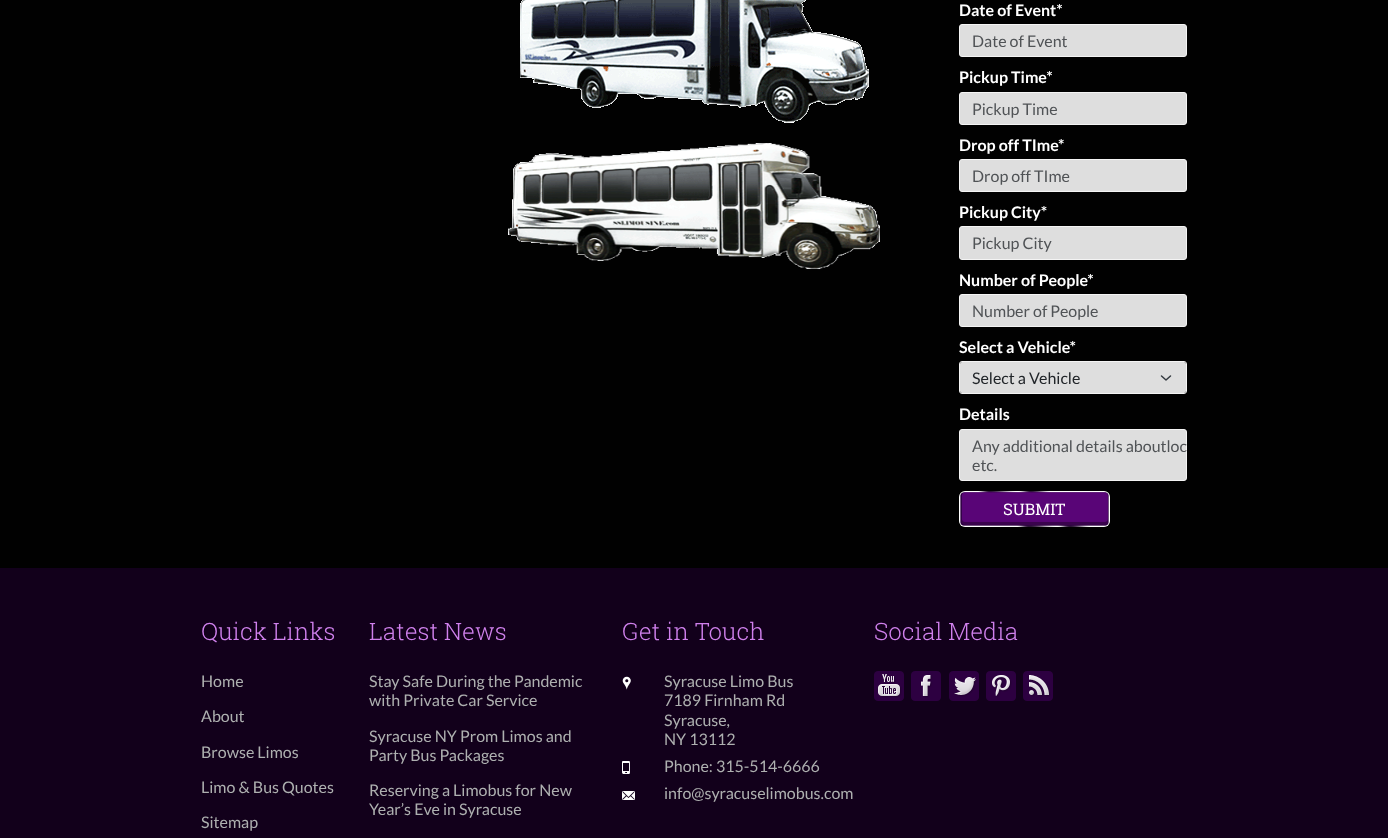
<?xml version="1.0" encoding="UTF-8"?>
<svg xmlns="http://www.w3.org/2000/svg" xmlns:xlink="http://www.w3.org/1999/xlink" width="1388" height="838">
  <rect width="100%" height="100%" fill="#010101" />
  <image x="520" y="0" width="349" height="123" xlink:href="image1.png" />
  <image x="508" y="143" width="372" height="126" xlink:href="image2.png" />
  <rect x="959.5" y="24.5" width="227" height="32" rx="2.5" fill="#dedede" stroke="#f4f4f4" />
  <rect x="959.5" y="92.5" width="227" height="32" rx="2.5" fill="#dedede" stroke="#f4f4f4" />
  <rect x="959.5" y="159.5" width="227" height="32" rx="2.5" fill="#dedede" stroke="#f4f4f4" />
  <rect x="959.5" y="226.5" width="227" height="33" rx="2.5" fill="#dedede" stroke="#f4f4f4" />
  <rect x="959.5" y="294.5" width="227" height="32" rx="2.5" fill="#dedede" stroke="#f4f4f4" />
  <rect x="960" y="362" width="226" height="31" rx="2" fill="#dedede" />
  <path d="M 1161.5 376 l 4.5 4 l 4.5 -4" fill="none" stroke="#343a40" stroke-width="1.5" stroke-linecap="round" stroke-linejoin="round" />
  <rect x="959.5" y="361.5" width="227" height="32" rx="2.5" fill="none" stroke="#f4f4f4" />
  <rect x="959.5" y="429.5" width="227" height="51" rx="2.5" fill="#dedede" stroke="#f4f4f4" />
  <image x="959" y="491" width="151" height="36" xlink:href="image3.png" />
  <rect y="568" width="1388" height="270" fill="#12001b" />
  <image x="622" y="676" width="9" height="14" xlink:href="image4.png" />
  <image x="622" y="761" width="8" height="13" xlink:href="image5.png" />
  <image x="622" y="791" width="13" height="9" xlink:href="image6.png" />
  <image x="874" y="671" width="30" height="30" xlink:href="image7.png" />
  <image x="911" y="671" width="30" height="30" xlink:href="image8.png" />
  <image x="949" y="671" width="30" height="30" xlink:href="image9.png" />
  <image x="986" y="671" width="30" height="30" xlink:href="image10.png" />
  <image x="1023" y="671" width="30" height="30" xlink:href="image11.png" />
  <text x="959" y="16" style="font-family: Lato; font-size: 16px; font-weight: bold; fill: #ffffff">Date of Event*</text>
  <text x="972" y="47" style="font-family: Lato; font-size: 16px; fill: #505356">Date of Event</text>
  <text x="959" y="83" style="font-family: Lato; font-size: 16px; font-weight: bold; fill: #ffffff">Pickup Time*</text>
  <text x="972" y="115" style="font-family: Lato; font-size: 16px; fill: #505356">Pickup Time</text>
  <text x="959" y="151" style="font-family: Lato; font-size: 16px; font-weight: bold; fill: #ffffff">Drop off TIme*</text>
  <text x="972" y="182" style="font-family: Lato; font-size: 16px; fill: #505356">Drop off TIme</text>
  <text x="959" y="218" style="font-family: Lato; font-size: 16px; font-weight: bold; fill: #ffffff">Pickup City*</text>
  <text x="972" y="249" style="font-family: Lato; font-size: 16px; fill: #505356">Pickup City</text>
  <text x="959" y="286" style="font-family: Lato; font-size: 16px; font-weight: bold; fill: #ffffff">Number of People*</text>
  <text x="972" y="317" style="font-family: Lato; font-size: 16px; fill: #505356">Number of People</text>
  <text x="959" y="353" style="font-family: Lato; font-size: 16px; font-weight: bold; fill: #ffffff">Select a Vehicle*</text>
  <text x="972" y="384" style="font-family: Lato; font-size: 16px; fill: #212529">Select a Vehicle</text>
  <text x="959" y="420" style="font-family: Lato; font-size: 16px; font-weight: bold; fill: #ffffff">Details</text>
  <text x="972" y="452" style="font-family: Lato; font-size: 16px; fill: #505356">Any additional details aboutloc</text>
  <text x="972" y="471" style="font-family: Lato; font-size: 16px; fill: #505356">etc.</text>
  <text x="1003" y="515" style="font-family: Roboto Slab; font-size: 16px; fill: #ffffff">SUBMIT</text>
  <text x="201" y="640" style="font-family: Roboto Slab; font-size: 24px; font-weight: 300; fill: #d080ed">Quick Links</text>
  <text x="201" y="687" style="font-family: Lato; font-size: 16px; fill: #aeb0b0">Home</text>
  <text x="201" y="722" style="font-family: Lato; font-size: 16px; fill: #aeb0b0">About</text>
  <text x="201" y="758" style="font-family: Lato; font-size: 16px; fill: #aeb0b0">Browse Limos</text>
  <text x="201" y="793" style="font-family: Lato; font-size: 16px; fill: #aeb0b0">Limo &amp; Bus Quotes</text>
  <text x="201" y="828" style="font-family: Lato; font-size: 16px; fill: #aeb0b0">Sitemap</text>
  <text x="369" y="640" style="font-family: Roboto Slab; font-size: 24px; font-weight: 300; fill: #d080ed">Latest News</text>
  <text x="369" y="687" style="font-family: Lato; font-size: 16px; fill: #aeb0b0">Stay Safe During the Pandemic</text>
  <text x="369" y="706" style="font-family: Lato; font-size: 16px; fill: #aeb0b0">with Private Car Service</text>
  <text x="369" y="742" style="font-family: Lato; font-size: 16px; fill: #aeb0b0">Syracuse NY Prom Limos and</text>
  <text x="369" y="761" style="font-family: Lato; font-size: 16px; fill: #aeb0b0">Party Bus Packages</text>
  <text x="369" y="796" style="font-family: Lato; font-size: 16px; fill: #aeb0b0">Reserving a Limobus for New</text>
  <text x="369" y="815" style="font-family: Lato; font-size: 16px; fill: #aeb0b0">Year’s Eve in Syracuse</text>
  <text x="622" y="640" style="font-family: Roboto Slab; font-size: 24px; font-weight: 300; fill: #d080ed">Get in Touch</text>
  <text x="664" y="687" style="font-family: Lato; font-size: 16px; fill: #aeb0b0">Syracuse Limo Bus</text>
  <text x="664" y="706" style="font-family: Lato; font-size: 16px; fill: #aeb0b0">7189 Firnham Rd</text>
  <text x="664" y="726" style="font-family: Lato; font-size: 16px; fill: #aeb0b0">Syracuse,</text>
  <text x="664" y="745" style="font-family: Lato; font-size: 16px; fill: #aeb0b0">NY 13112</text>
  <text x="664" y="772" style="font-family: Lato; font-size: 16px; fill: #aeb0b0">Phone: 315-514-6666</text>
  <text x="664" y="799" style="font-family: Lato; font-size: 16px; fill: #aeb0b0">info@syracuselimobus.com</text>
  <text x="874" y="640" style="font-family: Roboto Slab; font-size: 24px; font-weight: 300; fill: #d080ed">Social Media</text>
</svg>
